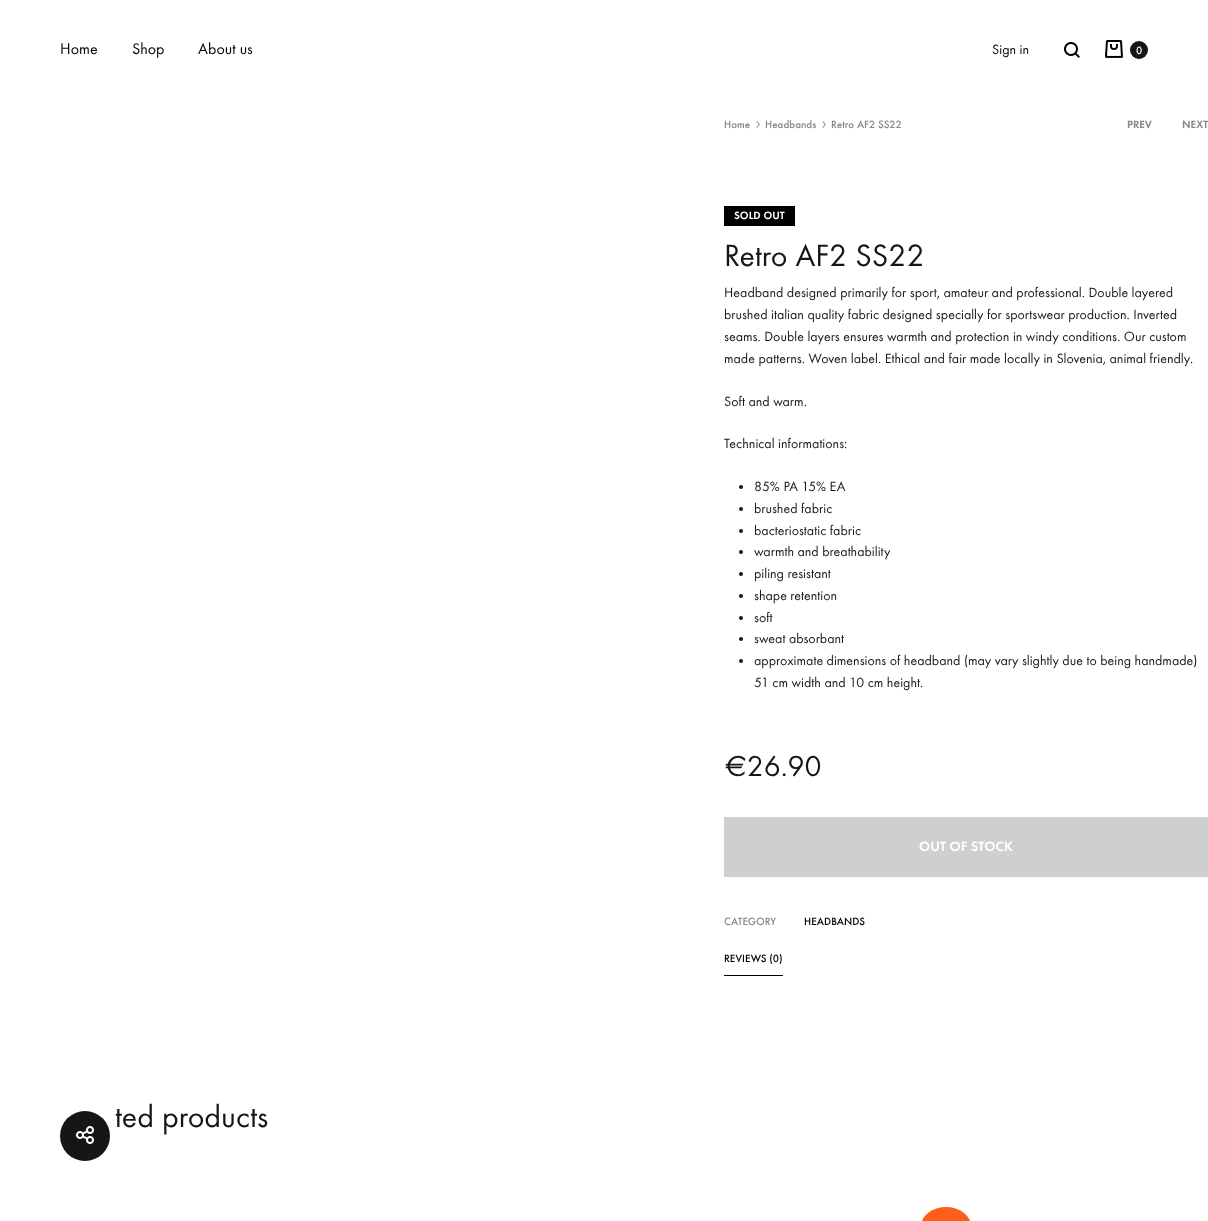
<?xml version="1.0" encoding="UTF-8"?>
<svg xmlns="http://www.w3.org/2000/svg" xmlns:xlink="http://www.w3.org/1999/xlink" width="1208" height="1221">
  <rect width="100%" height="100%" fill="#ffffff" />
  <image x="1064" y="42" width="16" height="16" xlink:href="image1.png" />
  <image x="1105" y="40" width="18" height="18" xlink:href="image2.png" />
  <circle cx="1139" cy="50" r="9" fill="#161619" />
  <image x="756" y="121" width="4" height="7" xlink:href="image3.png" />
  <image x="822" y="121" width="4" height="7" xlink:href="image3.png" />
  <rect x="724" y="206" width="71" height="20" fill="#000000" />
  <circle cx="741" cy="487" r="2" fill="#161619" />
  <circle cx="741" cy="509" r="2" fill="#161619" />
  <circle cx="741" cy="531" r="2" fill="#161619" />
  <circle cx="741" cy="552" r="2" fill="#161619" />
  <circle cx="741" cy="574" r="2" fill="#161619" />
  <circle cx="741" cy="596" r="2" fill="#161619" />
  <circle cx="741" cy="618" r="2" fill="#161619" />
  <circle cx="741" cy="639" r="2" fill="#161619" />
  <circle cx="741" cy="661" r="2" fill="#161619" />
  <rect x="724" y="817" width="484" height="60" fill="#cdcfd0" />
  <circle cx="85" cy="1136" r="25" fill="#161619" />
  <image x="76" y="1126" width="18" height="18" xlink:href="image4.png" />
  <rect x="724" y="975" width="59" height="1" fill="#000000" />
  <rect x="921" y="1207" width="50" height="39" rx="25" fill="#ff5d1a" />
  <text x="60" y="54" style="font-family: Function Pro; font-size: 16px; fill: #000000">Home</text>
  <text x="132" y="54" style="font-family: Function Pro; font-size: 16px; fill: #000000">Shop</text>
  <text x="198" y="54" style="font-family: Function Pro; font-size: 16px; fill: #000000">About us</text>
  <text x="992" y="54" style="font-family: Function Pro; font-size: 14px; fill: #000000">Sign in</text>
  <text x="1136" y="54" style="font-family: Function Pro; font-size: 11px; font-weight: 500; fill: #ffffff">0</text>
  <text x="724" y="128" style="font-family: Function Pro; font-size: 11px; font-weight: 500; fill: #838889">Home</text>
  <text x="765" y="128" style="font-family: Function Pro; font-size: 11px; font-weight: 500; fill: #838889">Headbands</text>
  <text x="831" y="128" style="font-family: Function Pro; font-size: 11px; font-weight: 500; fill: #838889">Retro AF2 SS22</text>
  <text x="1127" y="128" style="font-family: Function Pro; font-size: 11px; font-weight: 600; fill: #838889">PREV</text>
  <text x="1182" y="128" style="font-family: Function Pro; font-size: 11px; font-weight: 600; fill: #838889">NEXT</text>
  <text x="734" y="219" style="font-family: Function Pro; font-size: 11px; font-weight: 600; fill: #ffffff">SOLD OUT</text>
  <text x="724" y="266" style="font-family: Function Pro; font-size: 32px; fill: #161619">Retro AF2 SS22</text>
  <text x="724" y="297" style="font-family: Function Pro; font-size: 14px; fill: #161619">Headband designed primarily for sport, amateur and professional. Double layered</text>
  <text x="724" y="319" style="font-family: Function Pro; font-size: 14px; fill: #161619">brushed italian quality fabric designed specially for sportswear production. Inverted</text>
  <text x="724" y="341" style="font-family: Function Pro; font-size: 14px; fill: #161619">seams. Double layers ensures warmth and protection in windy conditions. Our custom</text>
  <text x="724" y="363" style="font-family: Function Pro; font-size: 14px; fill: #161619">made patterns. Woven label. Ethical and fair made locally in Slovenia, animal friendly.</text>
  <text x="724" y="406" style="font-family: Function Pro; font-size: 14px; fill: #161619">Soft and warm.</text>
  <text x="724" y="448" style="font-family: Function Pro; font-size: 14px; fill: #161619">Technical informations:</text>
  <text x="754" y="491" style="font-family: Function Pro; font-size: 14px; fill: #161619">85% PA 15% EA</text>
  <text x="754" y="513" style="font-family: Function Pro; font-size: 14px; fill: #161619">brushed fabric</text>
  <text x="754" y="535" style="font-family: Function Pro; font-size: 14px; fill: #161619">bacteriostatic fabric</text>
  <text x="754" y="556" style="font-family: Function Pro; font-size: 14px; fill: #161619">warmth and breathability</text>
  <text x="754" y="578" style="font-family: Function Pro; font-size: 14px; fill: #161619">piling resistant</text>
  <text x="754" y="600" style="font-family: Function Pro; font-size: 14px; fill: #161619">shape retention</text>
  <text x="754" y="622" style="font-family: Function Pro; font-size: 14px; fill: #161619">soft</text>
  <text x="754" y="643" style="font-family: Function Pro; font-size: 14px; fill: #161619">sweat absorbant</text>
  <text x="754" y="665" style="font-family: Function Pro; font-size: 14px; fill: #161619">approximate dimensions of headband (may vary slightly due to being handmade)</text>
  <text x="754" y="687" style="font-family: Function Pro; font-size: 14px; fill: #161619">51 cm width and 10 cm height.</text>
  <text x="724" y="776" style="font-family: Function Pro; font-size: 30px; fill: #161619">€26.90</text>
  <text x="919" y="851" style="font-family: Function Pro; font-size: 14px; font-weight: 600; fill: #ffffff">OUT OF STOCK</text>
  <text x="724" y="925" style="font-family: Function Pro; font-size: 11px; font-weight: 500; fill: #838889">CATEGORY</text>
  <text x="804" y="925" style="font-family: Function Pro; font-size: 11px; font-weight: 500; fill: #000000">HEADBANDS</text>
  <text x="724" y="962" style="font-family: Function Pro; font-size: 11px; font-weight: 500; fill: #000000">REVIEWS (0)</text>
  <text x="115" y="1127" style="font-family: Function Pro; font-size: 32px; fill: #161619">ted products</text>
</svg>
